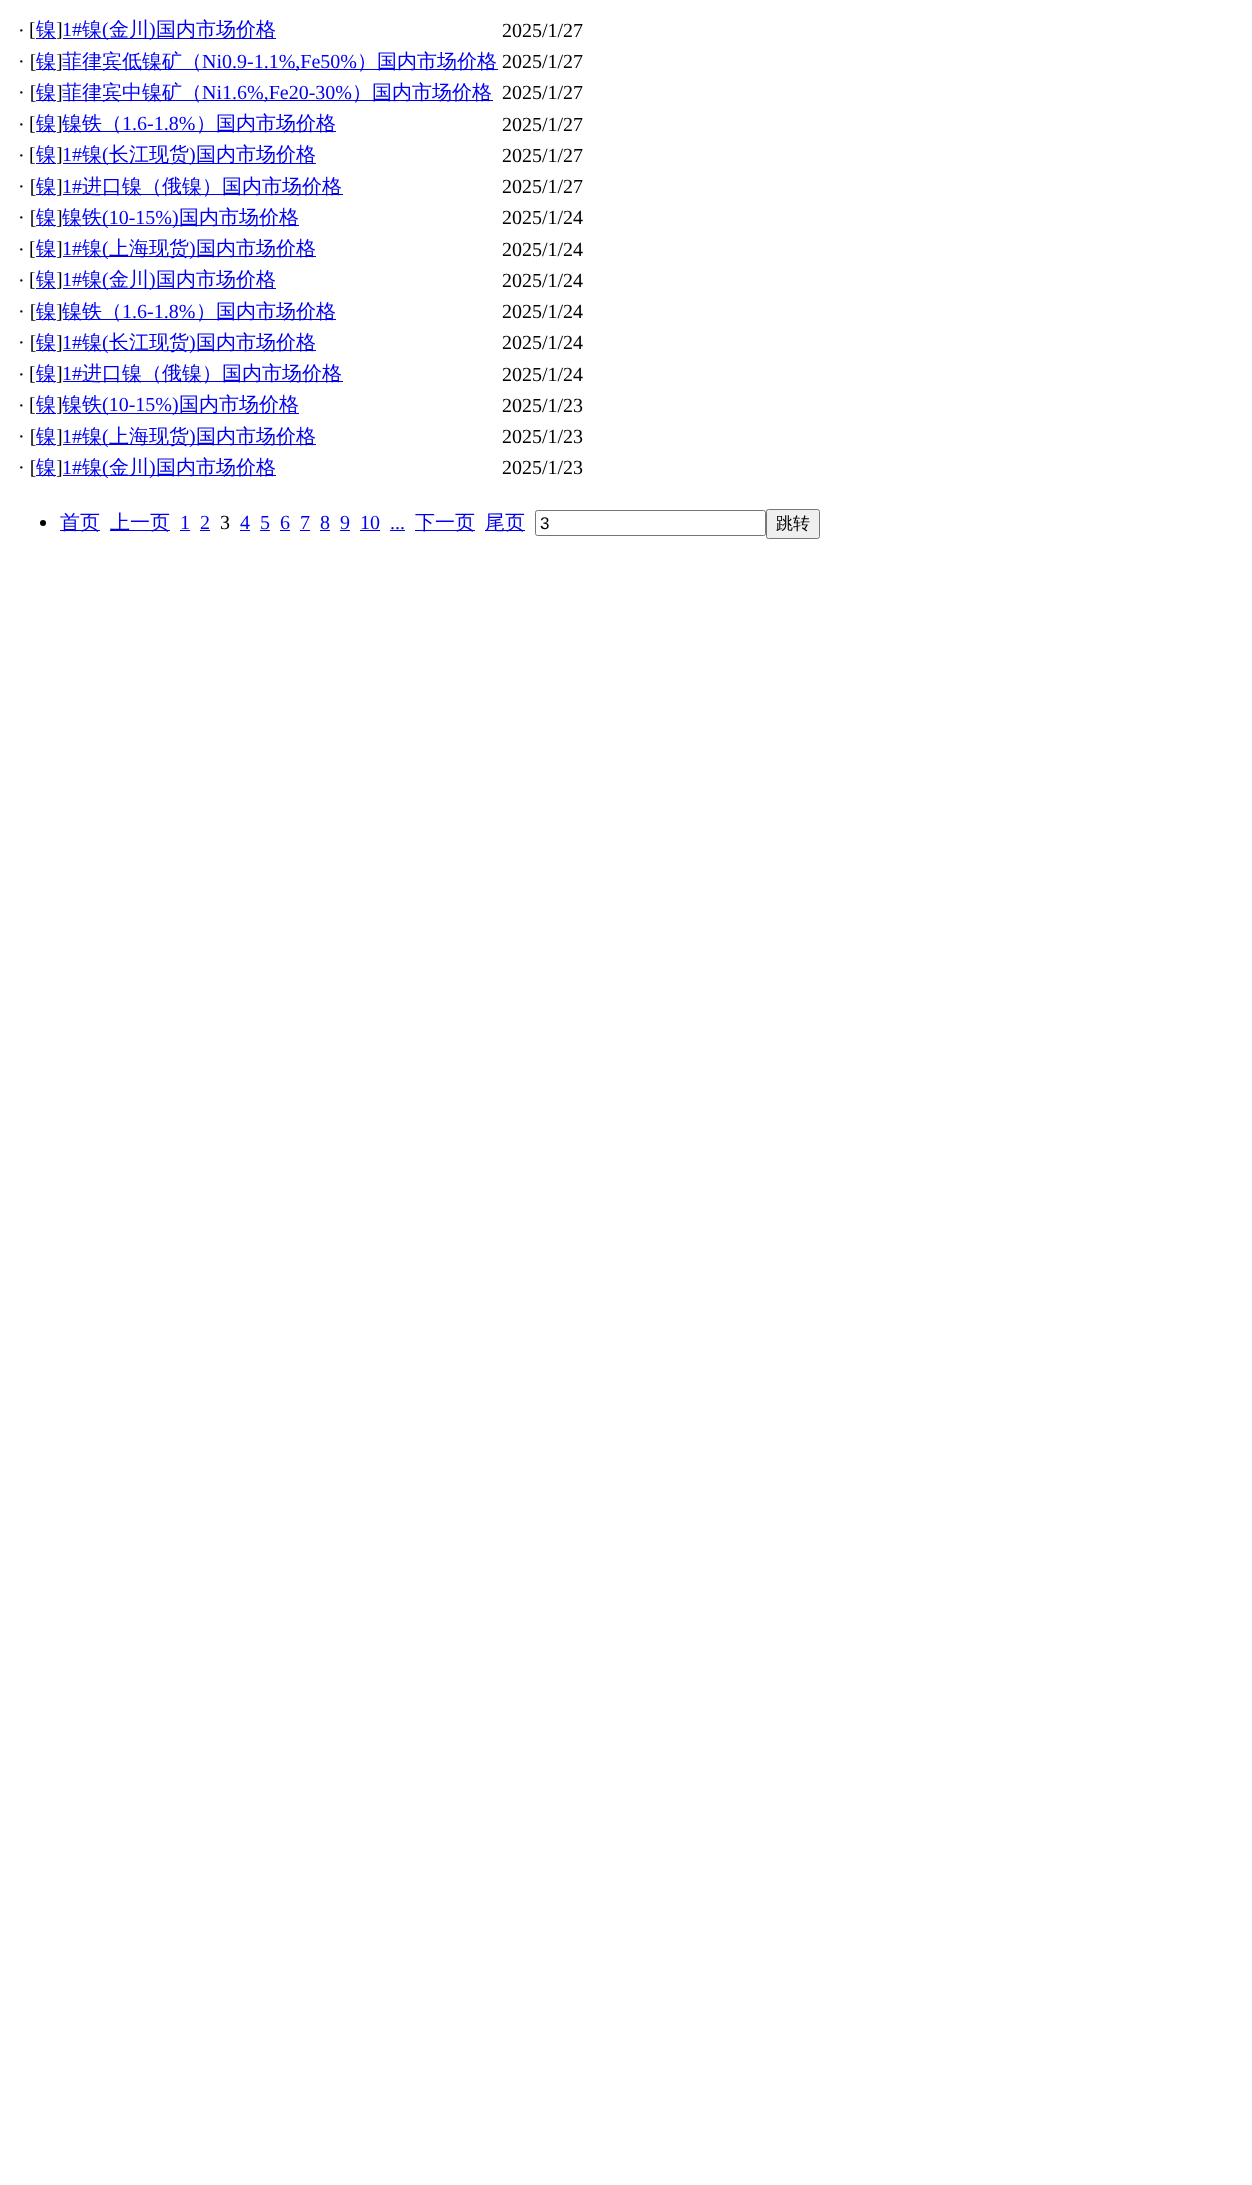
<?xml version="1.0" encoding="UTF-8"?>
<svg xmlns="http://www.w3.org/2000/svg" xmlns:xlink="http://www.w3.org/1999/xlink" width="1252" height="2185">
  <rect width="100%" height="100%" fill="#ffffff" />
  <rect x="36" y="38" width="20" height="1" fill="#0000ee" />
  <rect x="63" y="38" width="213" height="1" fill="#0000ee" />
  <rect x="36" y="69" width="20" height="1" fill="#0000ee" />
  <rect x="63" y="69" width="435" height="1" fill="#0000ee" />
  <rect x="36" y="100" width="20" height="1" fill="#0000ee" />
  <rect x="63" y="100" width="430" height="1" fill="#0000ee" />
  <rect x="36" y="131" width="20" height="1" fill="#0000ee" />
  <rect x="63" y="131" width="273" height="1" fill="#0000ee" />
  <rect x="36" y="163" width="20" height="1" fill="#0000ee" />
  <rect x="63" y="163" width="253" height="1" fill="#0000ee" />
  <rect x="36" y="194" width="20" height="1" fill="#0000ee" />
  <rect x="63" y="194" width="280" height="1" fill="#0000ee" />
  <rect x="36" y="225" width="20" height="1" fill="#0000ee" />
  <rect x="63" y="225" width="236" height="1" fill="#0000ee" />
  <rect x="36" y="256" width="20" height="1" fill="#0000ee" />
  <rect x="63" y="256" width="253" height="1" fill="#0000ee" />
  <rect x="36" y="288" width="20" height="1" fill="#0000ee" />
  <rect x="63" y="288" width="213" height="1" fill="#0000ee" />
  <rect x="36" y="319" width="20" height="1" fill="#0000ee" />
  <rect x="63" y="319" width="273" height="1" fill="#0000ee" />
  <rect x="36" y="350" width="20" height="1" fill="#0000ee" />
  <rect x="63" y="350" width="253" height="1" fill="#0000ee" />
  <rect x="36" y="381" width="20" height="1" fill="#0000ee" />
  <rect x="63" y="381" width="280" height="1" fill="#0000ee" />
  <rect x="36" y="413" width="20" height="1" fill="#0000ee" />
  <rect x="63" y="413" width="236" height="1" fill="#0000ee" />
  <rect x="36" y="444" width="20" height="1" fill="#0000ee" />
  <rect x="63" y="444" width="253" height="1" fill="#0000ee" />
  <rect x="36" y="475" width="20" height="1" fill="#0000ee" />
  <rect x="63" y="475" width="213" height="1" fill="#0000ee" />
  <circle cx="43" cy="523" r="3" fill="#000000" />
  <rect x="60" y="530" width="40" height="1" fill="#0000ee" />
  <rect x="110" y="530" width="60" height="1" fill="#0000ee" />
  <rect x="180" y="530" width="10" height="1" fill="#0000ee" />
  <rect x="200" y="530" width="10" height="1" fill="#0000ee" />
  <rect x="240" y="530" width="10" height="1" fill="#0000ee" />
  <rect x="260" y="530" width="10" height="1" fill="#0000ee" />
  <rect x="280" y="530" width="10" height="1" fill="#0000ee" />
  <rect x="300" y="530" width="10" height="1" fill="#0000ee" />
  <rect x="320" y="530" width="10" height="1" fill="#0000ee" />
  <rect x="340" y="530" width="10" height="1" fill="#0000ee" />
  <rect x="360" y="530" width="20" height="1" fill="#0000ee" />
  <rect x="390" y="530" width="15" height="1" fill="#0000ee" />
  <rect x="415" y="530" width="60" height="1" fill="#0000ee" />
  <rect x="485" y="530" width="40" height="1" fill="#0000ee" />
  <rect x="535.5" y="510.5" width="230" height="25" rx="2" fill="none" stroke="#767676" />
  <rect x="766.5" y="509.5" width="53" height="29" rx="2" fill="#efefef" stroke="#767676" />
  <text x="18" y="37" style="font-family: Liberation Serif; font-size: 20px; fill: #000000">·</text>
  <text x="29" y="36" style="font-family: Liberation Serif; font-size: 20px; fill: #000000">[</text>
  <text x="36" y="36" style="font-family: WenQuanYi Zen Hei; font-size: 20px; font-weight: 500; fill: #0000ee">镍</text>
  <text x="56" y="36" style="font-family: Liberation Serif; font-size: 20px; fill: #000000">]</text>
  <text x="62" y="36" style="font-family: Liberation Serif; font-size: 20px; fill: #0000ee">1#</text>
  <text x="82" y="36" style="font-family: WenQuanYi Zen Hei; font-size: 20px; font-weight: 500; fill: #0000ee">镍</text>
  <text x="102" y="36" style="font-family: Liberation Serif; font-size: 20px; fill: #0000ee">(</text>
  <text x="109" y="36" style="font-family: WenQuanYi Zen Hei; font-size: 20px; font-weight: 500; fill: #0000ee">金川</text>
  <text x="149" y="36" style="font-family: Liberation Serif; font-size: 20px; fill: #0000ee">)</text>
  <text x="156" y="36" style="font-family: WenQuanYi Zen Hei; font-size: 20px; font-weight: 500; fill: #0000ee">国内市场价格</text>
  <text x="502" y="37" style="font-family: Liberation Serif; font-size: 20px; fill: #000000">2025/1/27</text>
  <text x="18" y="68" style="font-family: Liberation Serif; font-size: 20px; fill: #000000">· [</text>
  <text x="36" y="68" style="font-family: WenQuanYi Zen Hei; font-size: 20px; font-weight: 500; fill: #0000ee">镍</text>
  <text x="56" y="68" style="font-family: Liberation Serif; font-size: 20px; fill: #000000">]</text>
  <text x="62" y="68" style="font-family: WenQuanYi Zen Hei; font-size: 20px; font-weight: 500; fill: #0000ee">菲律宾低镍矿（</text>
  <text x="202" y="68" style="font-family: Liberation Serif; font-size: 20px; fill: #0000ee">Ni0.9-1.1%,Fe50%</text>
  <text x="357" y="68" style="font-family: WenQuanYi Zen Hei; font-size: 20px; font-weight: 500; fill: #0000ee">）国内市场价格</text>
  <text x="502" y="68" style="font-family: Liberation Serif; font-size: 20px; fill: #000000">2025/1/27</text>
  <text x="18" y="99" style="font-family: Liberation Serif; font-size: 20px; fill: #000000">· [</text>
  <text x="36" y="99" style="font-family: WenQuanYi Zen Hei; font-size: 20px; font-weight: 500; fill: #0000ee">镍</text>
  <text x="56" y="99" style="font-family: Liberation Serif; font-size: 20px; fill: #000000">]</text>
  <text x="62" y="99" style="font-family: WenQuanYi Zen Hei; font-size: 20px; font-weight: 500; fill: #0000ee">菲律宾中镍矿（</text>
  <text x="202" y="99" style="font-family: Liberation Serif; font-size: 20px; fill: #0000ee">Ni1.6%,Fe20-30%</text>
  <text x="352" y="99" style="font-family: WenQuanYi Zen Hei; font-size: 20px; font-weight: 500; fill: #0000ee">）国内市场价格</text>
  <text x="502" y="99" style="font-family: Liberation Serif; font-size: 20px; fill: #000000">2025/1/27</text>
  <text x="18" y="131" style="font-family: Liberation Serif; font-size: 20px; fill: #000000">·</text>
  <text x="29" y="130" style="font-family: Liberation Serif; font-size: 20px; fill: #000000">[</text>
  <text x="36" y="130" style="font-family: WenQuanYi Zen Hei; font-size: 20px; font-weight: 500; fill: #0000ee">镍</text>
  <text x="56" y="130" style="font-family: Liberation Serif; font-size: 20px; fill: #000000">]</text>
  <text x="62" y="130" style="font-family: WenQuanYi Zen Hei; font-size: 20px; font-weight: 500; fill: #0000ee">镍铁（</text>
  <text x="122" y="130" style="font-family: Liberation Serif; font-size: 20px; fill: #0000ee">1.6-1.8%</text>
  <text x="196" y="130" style="font-family: WenQuanYi Zen Hei; font-size: 20px; font-weight: 500; fill: #0000ee">）国内市场价格</text>
  <text x="502" y="131" style="font-family: Liberation Serif; font-size: 20px; fill: #000000">2025/1/27</text>
  <text x="18" y="162" style="font-family: Liberation Serif; font-size: 20px; fill: #000000">·</text>
  <text x="29" y="161" style="font-family: Liberation Serif; font-size: 20px; fill: #000000">[</text>
  <text x="36" y="161" style="font-family: WenQuanYi Zen Hei; font-size: 20px; font-weight: 500; fill: #0000ee">镍</text>
  <text x="56" y="161" style="font-family: Liberation Serif; font-size: 20px; fill: #000000">]</text>
  <text x="62" y="161" style="font-family: Liberation Serif; font-size: 20px; fill: #0000ee">1#</text>
  <text x="82" y="161" style="font-family: WenQuanYi Zen Hei; font-size: 20px; font-weight: 500; fill: #0000ee">镍</text>
  <text x="102" y="161" style="font-family: Liberation Serif; font-size: 20px; fill: #0000ee">(</text>
  <text x="109" y="161" style="font-family: WenQuanYi Zen Hei; font-size: 20px; font-weight: 500; fill: #0000ee">长江现货</text>
  <text x="189" y="161" style="font-family: Liberation Serif; font-size: 20px; fill: #0000ee">)</text>
  <text x="196" y="161" style="font-family: WenQuanYi Zen Hei; font-size: 20px; font-weight: 500; fill: #0000ee">国内市场价格</text>
  <text x="502" y="162" style="font-family: Liberation Serif; font-size: 20px; fill: #000000">2025/1/27</text>
  <text x="18" y="193" style="font-family: Liberation Serif; font-size: 20px; fill: #000000">· [</text>
  <text x="36" y="193" style="font-family: WenQuanYi Zen Hei; font-size: 20px; font-weight: 500; fill: #0000ee">镍</text>
  <text x="56" y="193" style="font-family: Liberation Serif; font-size: 20px; fill: #000000">]</text>
  <text x="62" y="193" style="font-family: Liberation Serif; font-size: 20px; fill: #0000ee">1#</text>
  <text x="82" y="193" style="font-family: WenQuanYi Zen Hei; font-size: 20px; font-weight: 500; fill: #0000ee">进口镍（俄镍）国内市场价格</text>
  <text x="502" y="193" style="font-family: Liberation Serif; font-size: 20px; fill: #000000">2025/1/27</text>
  <text x="18" y="224" style="font-family: Liberation Serif; font-size: 20px; fill: #000000">· [</text>
  <text x="36" y="224" style="font-family: WenQuanYi Zen Hei; font-size: 20px; font-weight: 500; fill: #0000ee">镍</text>
  <text x="56" y="224" style="font-family: Liberation Serif; font-size: 20px; fill: #000000">]</text>
  <text x="62" y="224" style="font-family: WenQuanYi Zen Hei; font-size: 20px; font-weight: 500; fill: #0000ee">镍铁</text>
  <text x="102" y="224" style="font-family: Liberation Serif; font-size: 20px; fill: #0000ee">(10-15%)</text>
  <text x="179" y="224" style="font-family: WenQuanYi Zen Hei; font-size: 20px; font-weight: 500; fill: #0000ee">国内市场价格</text>
  <text x="502" y="224" style="font-family: Liberation Serif; font-size: 20px; fill: #000000">2025/1/24</text>
  <text x="18" y="256" style="font-family: Liberation Serif; font-size: 20px; fill: #000000">·</text>
  <text x="29" y="255" style="font-family: Liberation Serif; font-size: 20px; fill: #000000">[</text>
  <text x="36" y="255" style="font-family: WenQuanYi Zen Hei; font-size: 20px; font-weight: 500; fill: #0000ee">镍</text>
  <text x="56" y="255" style="font-family: Liberation Serif; font-size: 20px; fill: #000000">]</text>
  <text x="62" y="255" style="font-family: Liberation Serif; font-size: 20px; fill: #0000ee">1#</text>
  <text x="82" y="255" style="font-family: WenQuanYi Zen Hei; font-size: 20px; font-weight: 500; fill: #0000ee">镍</text>
  <text x="102" y="255" style="font-family: Liberation Serif; font-size: 20px; fill: #0000ee">(</text>
  <text x="109" y="255" style="font-family: WenQuanYi Zen Hei; font-size: 20px; font-weight: 500; fill: #0000ee">上海现货</text>
  <text x="189" y="255" style="font-family: Liberation Serif; font-size: 20px; fill: #0000ee">)</text>
  <text x="196" y="255" style="font-family: WenQuanYi Zen Hei; font-size: 20px; font-weight: 500; fill: #0000ee">国内市场价格</text>
  <text x="502" y="256" style="font-family: Liberation Serif; font-size: 20px; fill: #000000">2025/1/24</text>
  <text x="18" y="287" style="font-family: Liberation Serif; font-size: 20px; fill: #000000">·</text>
  <text x="29" y="286" style="font-family: Liberation Serif; font-size: 20px; fill: #000000">[</text>
  <text x="36" y="286" style="font-family: WenQuanYi Zen Hei; font-size: 20px; font-weight: 500; fill: #0000ee">镍</text>
  <text x="56" y="286" style="font-family: Liberation Serif; font-size: 20px; fill: #000000">]</text>
  <text x="62" y="286" style="font-family: Liberation Serif; font-size: 20px; fill: #0000ee">1#</text>
  <text x="82" y="286" style="font-family: WenQuanYi Zen Hei; font-size: 20px; font-weight: 500; fill: #0000ee">镍</text>
  <text x="102" y="286" style="font-family: Liberation Serif; font-size: 20px; fill: #0000ee">(</text>
  <text x="109" y="286" style="font-family: WenQuanYi Zen Hei; font-size: 20px; font-weight: 500; fill: #0000ee">金川</text>
  <text x="149" y="286" style="font-family: Liberation Serif; font-size: 20px; fill: #0000ee">)</text>
  <text x="156" y="286" style="font-family: WenQuanYi Zen Hei; font-size: 20px; font-weight: 500; fill: #0000ee">国内市场价格</text>
  <text x="502" y="287" style="font-family: Liberation Serif; font-size: 20px; fill: #000000">2025/1/24</text>
  <text x="18" y="318" style="font-family: Liberation Serif; font-size: 20px; fill: #000000">· [</text>
  <text x="36" y="318" style="font-family: WenQuanYi Zen Hei; font-size: 20px; font-weight: 500; fill: #0000ee">镍</text>
  <text x="56" y="318" style="font-family: Liberation Serif; font-size: 20px; fill: #000000">]</text>
  <text x="62" y="318" style="font-family: WenQuanYi Zen Hei; font-size: 20px; font-weight: 500; fill: #0000ee">镍铁（</text>
  <text x="122" y="318" style="font-family: Liberation Serif; font-size: 20px; fill: #0000ee">1.6-1.8%</text>
  <text x="196" y="318" style="font-family: WenQuanYi Zen Hei; font-size: 20px; font-weight: 500; fill: #0000ee">）国内市场价格</text>
  <text x="502" y="318" style="font-family: Liberation Serif; font-size: 20px; fill: #000000">2025/1/24</text>
  <text x="18" y="349" style="font-family: Liberation Serif; font-size: 20px; fill: #000000">· [</text>
  <text x="36" y="349" style="font-family: WenQuanYi Zen Hei; font-size: 20px; font-weight: 500; fill: #0000ee">镍</text>
  <text x="56" y="349" style="font-family: Liberation Serif; font-size: 20px; fill: #000000">]</text>
  <text x="62" y="349" style="font-family: Liberation Serif; font-size: 20px; fill: #0000ee">1#</text>
  <text x="82" y="349" style="font-family: WenQuanYi Zen Hei; font-size: 20px; font-weight: 500; fill: #0000ee">镍</text>
  <text x="102" y="349" style="font-family: Liberation Serif; font-size: 20px; fill: #0000ee">(</text>
  <text x="109" y="349" style="font-family: WenQuanYi Zen Hei; font-size: 20px; font-weight: 500; fill: #0000ee">长江现货</text>
  <text x="189" y="349" style="font-family: Liberation Serif; font-size: 20px; fill: #0000ee">)</text>
  <text x="196" y="349" style="font-family: WenQuanYi Zen Hei; font-size: 20px; font-weight: 500; fill: #0000ee">国内市场价格</text>
  <text x="502" y="349" style="font-family: Liberation Serif; font-size: 20px; fill: #000000">2025/1/24</text>
  <text x="18" y="381" style="font-family: Liberation Serif; font-size: 20px; fill: #000000">·</text>
  <text x="29" y="380" style="font-family: Liberation Serif; font-size: 20px; fill: #000000">[</text>
  <text x="36" y="380" style="font-family: WenQuanYi Zen Hei; font-size: 20px; font-weight: 500; fill: #0000ee">镍</text>
  <text x="56" y="380" style="font-family: Liberation Serif; font-size: 20px; fill: #000000">]</text>
  <text x="62" y="380" style="font-family: Liberation Serif; font-size: 20px; fill: #0000ee">1#</text>
  <text x="82" y="380" style="font-family: WenQuanYi Zen Hei; font-size: 20px; font-weight: 500; fill: #0000ee">进口镍（俄镍）国内市场价格</text>
  <text x="502" y="381" style="font-family: Liberation Serif; font-size: 20px; fill: #000000">2025/1/24</text>
  <text x="18" y="412" style="font-family: Liberation Serif; font-size: 20px; fill: #000000">·</text>
  <text x="29" y="411" style="font-family: Liberation Serif; font-size: 20px; fill: #000000">[</text>
  <text x="36" y="411" style="font-family: WenQuanYi Zen Hei; font-size: 20px; font-weight: 500; fill: #0000ee">镍</text>
  <text x="56" y="411" style="font-family: Liberation Serif; font-size: 20px; fill: #000000">]</text>
  <text x="62" y="411" style="font-family: WenQuanYi Zen Hei; font-size: 20px; font-weight: 500; fill: #0000ee">镍铁</text>
  <text x="102" y="411" style="font-family: Liberation Serif; font-size: 20px; fill: #0000ee">(10-15%)</text>
  <text x="179" y="411" style="font-family: WenQuanYi Zen Hei; font-size: 20px; font-weight: 500; fill: #0000ee">国内市场价格</text>
  <text x="502" y="412" style="font-family: Liberation Serif; font-size: 20px; fill: #000000">2025/1/23</text>
  <text x="18" y="443" style="font-family: Liberation Serif; font-size: 20px; fill: #000000">· [</text>
  <text x="36" y="443" style="font-family: WenQuanYi Zen Hei; font-size: 20px; font-weight: 500; fill: #0000ee">镍</text>
  <text x="56" y="443" style="font-family: Liberation Serif; font-size: 20px; fill: #000000">]</text>
  <text x="62" y="443" style="font-family: Liberation Serif; font-size: 20px; fill: #0000ee">1#</text>
  <text x="82" y="443" style="font-family: WenQuanYi Zen Hei; font-size: 20px; font-weight: 500; fill: #0000ee">镍</text>
  <text x="102" y="443" style="font-family: Liberation Serif; font-size: 20px; fill: #0000ee">(</text>
  <text x="109" y="443" style="font-family: WenQuanYi Zen Hei; font-size: 20px; font-weight: 500; fill: #0000ee">上海现货</text>
  <text x="189" y="443" style="font-family: Liberation Serif; font-size: 20px; fill: #0000ee">)</text>
  <text x="196" y="443" style="font-family: WenQuanYi Zen Hei; font-size: 20px; font-weight: 500; fill: #0000ee">国内市场价格</text>
  <text x="502" y="443" style="font-family: Liberation Serif; font-size: 20px; fill: #000000">2025/1/23</text>
  <text x="18" y="474" style="font-family: Liberation Serif; font-size: 20px; fill: #000000">· [</text>
  <text x="36" y="474" style="font-family: WenQuanYi Zen Hei; font-size: 20px; font-weight: 500; fill: #0000ee">镍</text>
  <text x="56" y="474" style="font-family: Liberation Serif; font-size: 20px; fill: #000000">]</text>
  <text x="62" y="474" style="font-family: Liberation Serif; font-size: 20px; fill: #0000ee">1#</text>
  <text x="82" y="474" style="font-family: WenQuanYi Zen Hei; font-size: 20px; font-weight: 500; fill: #0000ee">镍</text>
  <text x="102" y="474" style="font-family: Liberation Serif; font-size: 20px; fill: #0000ee">(</text>
  <text x="109" y="474" style="font-family: WenQuanYi Zen Hei; font-size: 20px; font-weight: 500; fill: #0000ee">金川</text>
  <text x="149" y="474" style="font-family: Liberation Serif; font-size: 20px; fill: #0000ee">)</text>
  <text x="156" y="474" style="font-family: WenQuanYi Zen Hei; font-size: 20px; font-weight: 500; fill: #0000ee">国内市场价格</text>
  <text x="502" y="474" style="font-family: Liberation Serif; font-size: 20px; fill: #000000">2025/1/23</text>
  <text x="60" y="529" style="font-family: WenQuanYi Zen Hei; font-size: 20px; font-weight: 500; fill: #0000ee">首页</text>
  <text x="110" y="529" style="font-family: WenQuanYi Zen Hei; font-size: 20px; font-weight: 500; fill: #0000ee">上一页</text>
  <text x="180" y="529" style="font-family: Liberation Serif; font-size: 20px; fill: #0000ee">1</text>
  <text x="200" y="529" style="font-family: Liberation Serif; font-size: 20px; fill: #0000ee">2</text>
  <text x="220" y="529" style="font-family: Liberation Serif; font-size: 20px; fill: #000000">3</text>
  <text x="240" y="529" style="font-family: Liberation Serif; font-size: 20px; fill: #0000ee">4</text>
  <text x="260" y="529" style="font-family: Liberation Serif; font-size: 20px; fill: #0000ee">5</text>
  <text x="280" y="529" style="font-family: Liberation Serif; font-size: 20px; fill: #0000ee">6</text>
  <text x="300" y="529" style="font-family: Liberation Serif; font-size: 20px; fill: #0000ee">7</text>
  <text x="320" y="529" style="font-family: Liberation Serif; font-size: 20px; fill: #0000ee">8</text>
  <text x="340" y="529" style="font-family: Liberation Serif; font-size: 20px; fill: #0000ee">9</text>
  <text x="360" y="529" style="font-family: Liberation Serif; font-size: 20px; fill: #0000ee">10</text>
  <text x="390" y="529" style="font-family: Liberation Serif; font-size: 20px; fill: #0000ee">...</text>
  <text x="415" y="529" style="font-family: WenQuanYi Zen Hei; font-size: 20px; font-weight: 500; fill: #0000ee">下一页</text>
  <text x="485" y="529" style="font-family: WenQuanYi Zen Hei; font-size: 20px; font-weight: 500; fill: #0000ee">尾页</text>
  <text x="540" y="529" style="font-family: Liberation Sans; font-size: 17px; fill: #000000">3</text>
  <text x="776" y="529" style="font-family: WenQuanYi Zen Hei; font-size: 17px; font-weight: 500; fill: #000000">跳转</text>
</svg>
